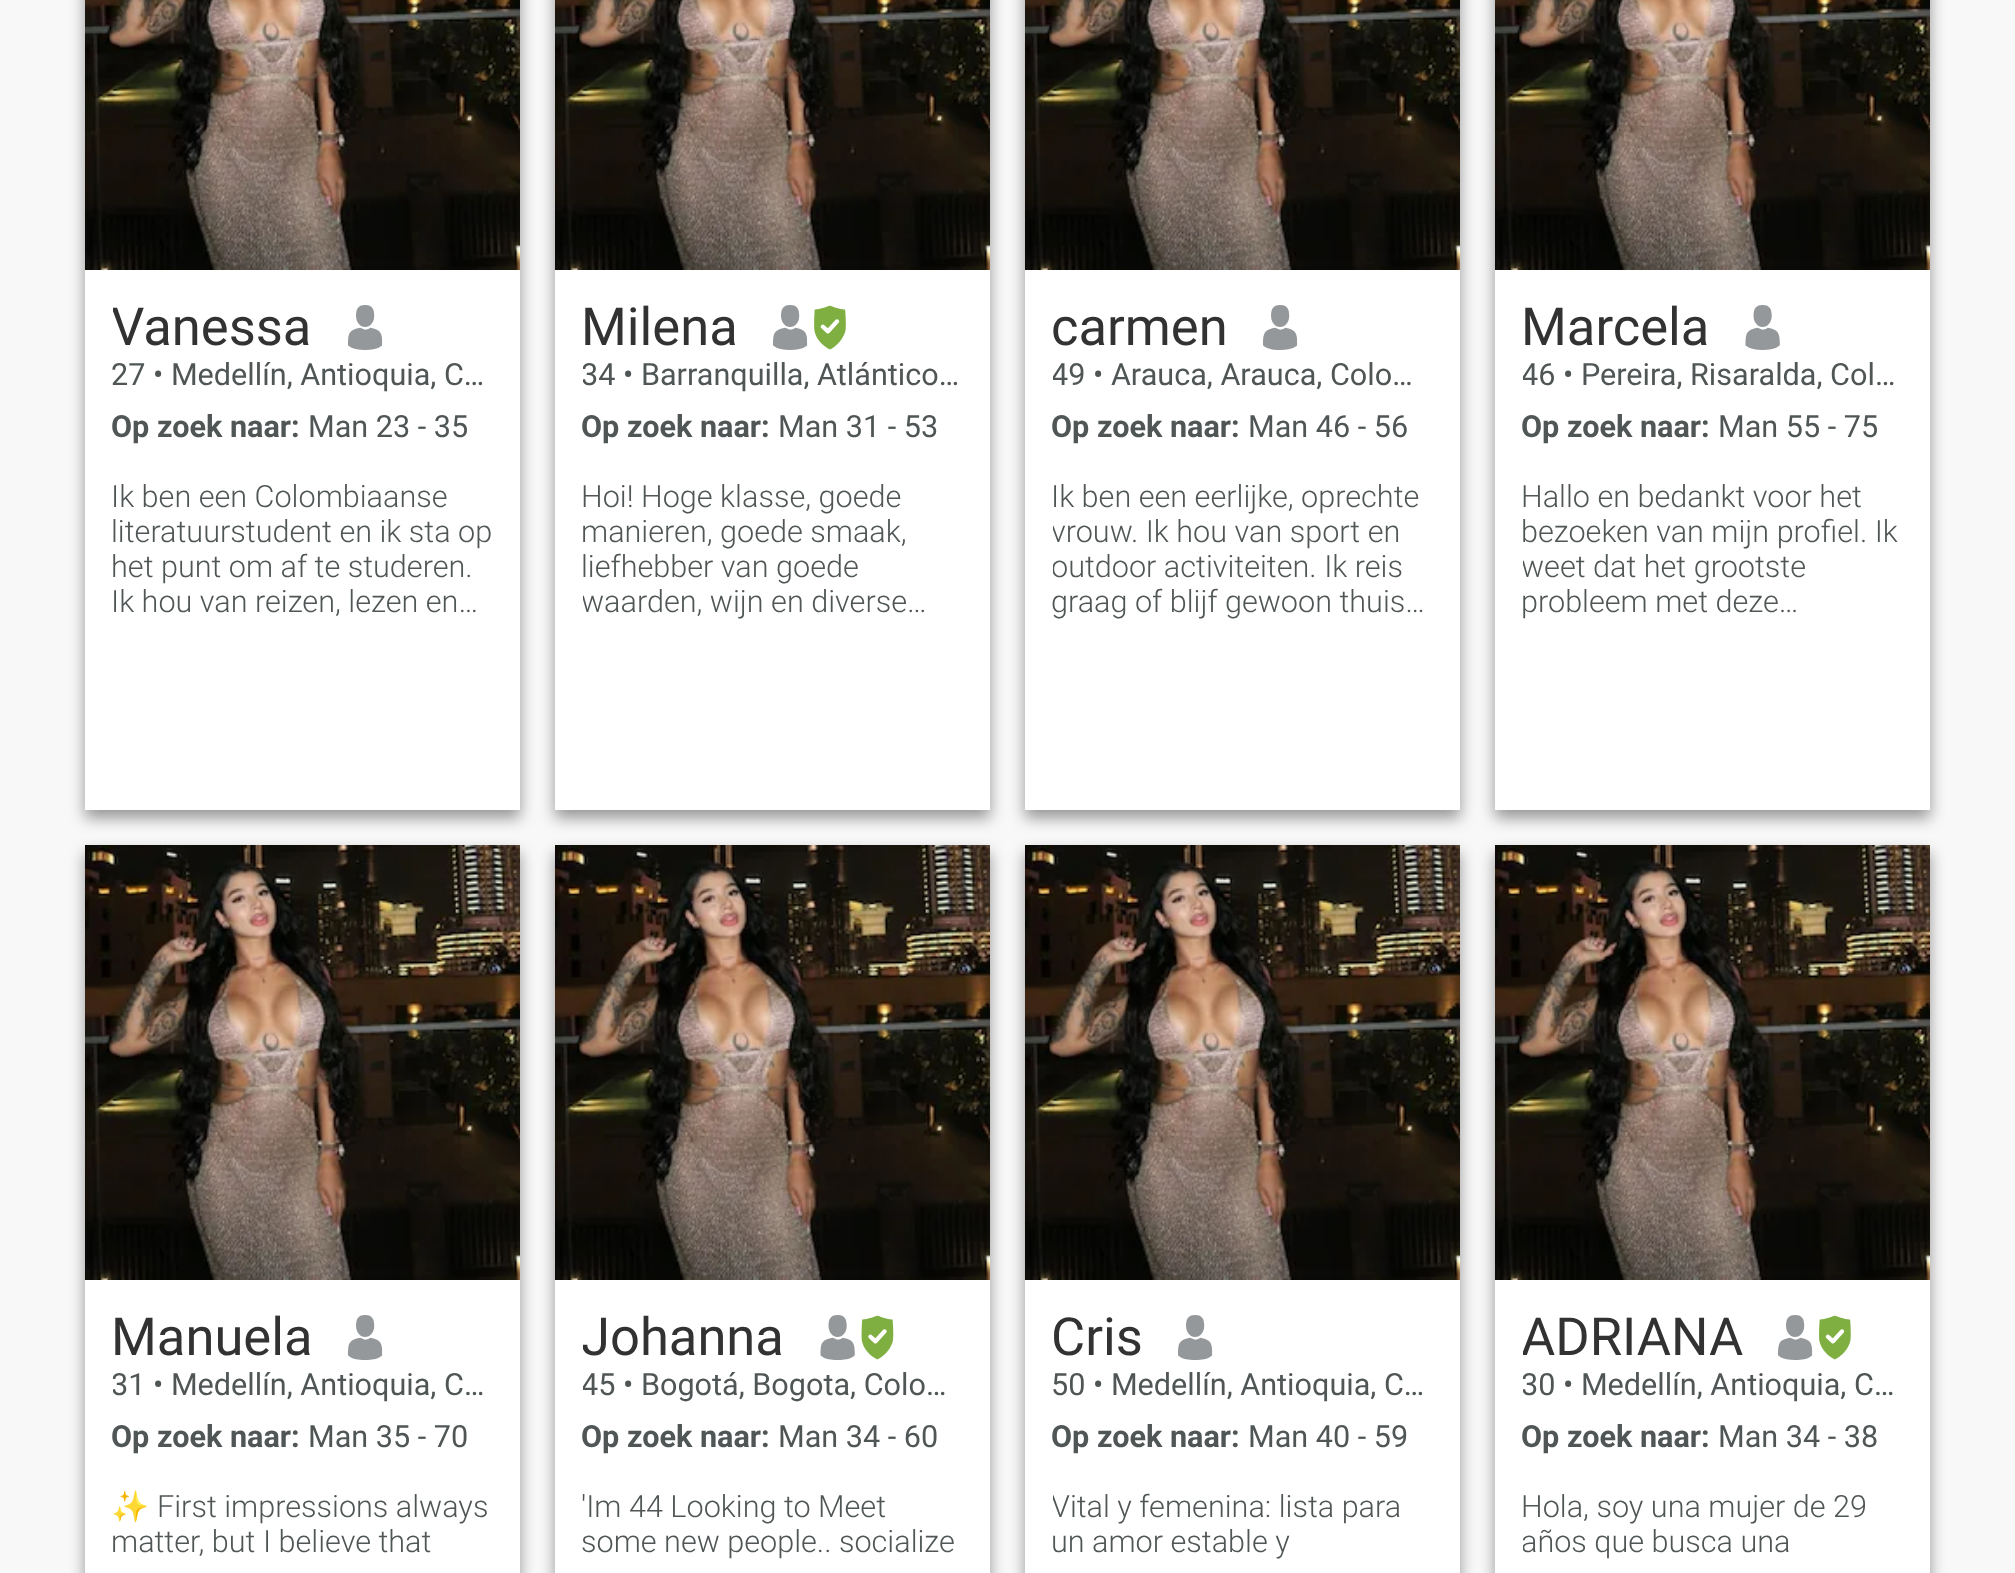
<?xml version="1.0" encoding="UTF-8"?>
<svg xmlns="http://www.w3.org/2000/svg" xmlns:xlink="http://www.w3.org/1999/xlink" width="2015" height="1573">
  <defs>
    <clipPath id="clip1"><rect x="113" y="298" width="200" height="60" /></clipPath>
    <clipPath id="clip2"><rect x="583" y="358" width="382" height="35" /></clipPath>
    <clipPath id="clip3"><rect x="583" y="480" width="382" height="140" /></clipPath>
    <clipPath id="clip4"><rect x="1053" y="358" width="382" height="35" /></clipPath>
    <clipPath id="clip5"><rect x="1053" y="480" width="382" height="140" /></clipPath>
    <clipPath id="clip6"><rect x="1523" y="358" width="382" height="35" /></clipPath>
    <clipPath id="clip7"><rect x="1523" y="480" width="382" height="140" /></clipPath>
    <clipPath id="clip8"><rect x="113" y="1368" width="382" height="35" /></clipPath>
    <clipPath id="clip9"><rect x="113" y="1490" width="382" height="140" /></clipPath>
    <clipPath id="clip10"><rect x="583" y="1308" width="202" height="60" /></clipPath>
    <clipPath id="clip11"><rect x="583" y="1368" width="382" height="35" /></clipPath>
    <clipPath id="clip12"><rect x="1053" y="1490" width="382" height="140" /></clipPath>
    <clipPath id="clip13"><rect x="1523" y="1308" width="220" height="60" /></clipPath>
    <clipPath id="clip14"><rect x="1523" y="1368" width="382" height="35" /></clipPath>
    <clipPath id="clip15"><rect x="1523" y="1490" width="382" height="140" /></clipPath>
  </defs>
  <rect width="100%" height="100%" fill="#f8f8f8" />
  <rect x="85" y="-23" width="435" height="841" fill="#000000" fill-opacity="0.4" filter="blur(7.5px)" />
  <rect x="85" y="270" width="435" height="540" fill="#ffffff" />
  <image x="85" y="0" width="435" height="270" xlink:href="image1.png" />
  <image x="348" y="305" width="35" height="45" xlink:href="image2.png" />
  <rect x="555" y="-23" width="435" height="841" fill="#000000" fill-opacity="0.4" filter="blur(7.5px)" />
  <rect x="555" y="270" width="435" height="540" fill="#ffffff" />
  <image x="555" y="0" width="435" height="270" xlink:href="image1.png" />
  <image x="773" y="305" width="35" height="45" xlink:href="image2.png" />
  <image x="814" y="305" width="32" height="45" xlink:href="image3.png" />
  <rect x="1025" y="-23" width="435" height="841" fill="#000000" fill-opacity="0.4" filter="blur(7.5px)" />
  <rect x="1025" y="270" width="435" height="540" fill="#ffffff" />
  <image x="1025" y="0" width="435" height="270" xlink:href="image4.png" />
  <image x="1263" y="305" width="35" height="45" xlink:href="image5.png" />
  <rect x="1495" y="-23" width="435" height="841" fill="#000000" fill-opacity="0.4" filter="blur(7.5px)" />
  <rect x="1495" y="270" width="435" height="540" fill="#ffffff" />
  <image x="1495" y="0" width="435" height="270" xlink:href="image4.png" />
  <image x="1745" y="305" width="35" height="45" xlink:href="image6.png" />
  <rect x="85" y="853" width="435" height="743" fill="#000000" fill-opacity="0.4" filter="blur(7.5px)" />
  <rect x="85" y="1280" width="435" height="293" fill="#ffffff" />
  <image x="85" y="845" width="435" height="435" xlink:href="image7.png" />
  <image x="348" y="1315" width="35" height="45" xlink:href="image8.png" />
  <rect x="555" y="853" width="435" height="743" fill="#000000" fill-opacity="0.4" filter="blur(7.5px)" />
  <rect x="555" y="1280" width="435" height="293" fill="#ffffff" />
  <image x="555" y="845" width="435" height="435" xlink:href="image7.png" />
  <image x="820" y="1315" width="35" height="45" xlink:href="image9.png" />
  <image x="861" y="1315" width="33" height="45" xlink:href="image10.png" />
  <rect x="1025" y="853" width="435" height="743" fill="#000000" fill-opacity="0.4" filter="blur(7.5px)" />
  <rect x="1025" y="1280" width="435" height="293" fill="#ffffff" />
  <image x="1025" y="845" width="435" height="435" xlink:href="image11.png" />
  <image x="1178" y="1315" width="35" height="45" xlink:href="image8.png" />
  <rect x="1495" y="853" width="435" height="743" fill="#000000" fill-opacity="0.4" filter="blur(7.5px)" />
  <rect x="1495" y="1280" width="435" height="293" fill="#ffffff" />
  <image x="1495" y="845" width="435" height="435" xlink:href="image11.png" />
  <image x="1778" y="1315" width="35" height="45" xlink:href="image12.png" />
  <image x="1819" y="1315" width="32" height="45" xlink:href="image13.png" />
  <g clip-path="url(#clip1)">
    <text x="111" y="345" style="font-family: Roboto; font-size: 52.5px; fill: #323232">Vanessa</text>
  </g>
  <text x="111" y="385" style="font-family: Roboto; font-size: 30.6px; fill: #505656">27 • Medellín, Antioquia, C…</text>
  <text x="111" y="437" style="font-family: Roboto; font-size: 30.6px; font-weight: bold; fill: #505656">Op zoek naar:</text>
  <text x="308" y="437" style="font-family: Roboto; font-size: 30.6px; fill: #505656">Man 23 - 35</text>
  <text x="111" y="507" style="font-family: Roboto; font-size: 30.6px; font-weight: 300; fill: #505656">Ik ben een Colombiaanse</text>
  <text x="111" y="542" style="font-family: Roboto; font-size: 30.6px; font-weight: 300; fill: #505656">literatuurstudent en ik sta op</text>
  <text x="111" y="577" style="font-family: Roboto; font-size: 30.6px; font-weight: 300; fill: #505656">het punt om af te studeren.</text>
  <text x="111" y="612" style="font-family: Roboto; font-size: 30.6px; font-weight: 300; fill: #505656">Ik hou van reizen, lezen en…</text>
  <text x="581" y="345" style="font-family: Roboto; font-size: 52.5px; fill: #323232">Milena</text>
  <g clip-path="url(#clip2)">
    <text x="581" y="385" style="font-family: Roboto; font-size: 30.6px; fill: #505656">34</text>
  </g>
  <text x="623" y="385" style="font-family: Roboto; font-size: 30.6px; fill: #505656">• Barranquilla, Atlántico…</text>
  <text x="581" y="437" style="font-family: Roboto; font-size: 30.6px; font-weight: bold; fill: #505656">Op zoek naar:</text>
  <text x="778" y="437" style="font-family: Roboto; font-size: 30.6px; fill: #505656">Man 31 - 53</text>
  <text x="581" y="507" style="font-family: Roboto; font-size: 30.6px; font-weight: 300; fill: #505656">Hoi! Hoge klasse, goede</text>
  <text x="581" y="542" style="font-family: Roboto; font-size: 30.6px; font-weight: 300; fill: #505656">manieren, goede smaak,</text>
  <text x="581" y="577" style="font-family: Roboto; font-size: 30.6px; font-weight: 300; fill: #505656">liefhebber van goede</text>
  <g clip-path="url(#clip3)">
    <text x="581" y="612" style="font-family: Roboto; font-size: 30.6px; font-weight: 300; fill: #505656">waarden, wijn en diverse…</text>
  </g>
  <text x="1051" y="345" style="font-family: Roboto; font-size: 52.5px; fill: #323232">carmen</text>
  <g clip-path="url(#clip4)">
    <text x="1051" y="385" style="font-family: Roboto; font-size: 30.6px; fill: #505656">49</text>
  </g>
  <text x="1093" y="385" style="font-family: Roboto; font-size: 30.6px; fill: #505656">• Arauca, Arauca, Colo…</text>
  <text x="1051" y="437" style="font-family: Roboto; font-size: 30.6px; font-weight: bold; fill: #505656">Op zoek naar:</text>
  <text x="1248" y="437" style="font-family: Roboto; font-size: 30.6px; fill: #505656">Man 46 - 56</text>
  <text x="1051" y="507" style="font-family: Roboto; font-size: 30.6px; font-weight: 300; fill: #505656">Ik ben een eerlijke, oprechte</text>
  <g clip-path="url(#clip5)">
    <text x="1051" y="542" style="font-family: Roboto; font-size: 30.6px; font-weight: 300; fill: #505656">vrouw. Ik hou van sport en</text>
    <text x="1051" y="577" style="font-family: Roboto; font-size: 30.6px; font-weight: 300; fill: #505656">outdoor activiteiten. Ik reis</text>
  </g>
  <text x="1051" y="612" style="font-family: Roboto; font-size: 30.6px; font-weight: 300; fill: #505656">graag of blijf gewoon thuis…</text>
  <text x="1521" y="345" style="font-family: Roboto; font-size: 52.5px; fill: #323232">Marcela</text>
  <g clip-path="url(#clip6)">
    <text x="1521" y="385" style="font-family: Roboto; font-size: 30.6px; fill: #505656">46</text>
  </g>
  <text x="1563" y="385" style="font-family: Roboto; font-size: 30.6px; fill: #505656">• Pereira, Risaralda, Col…</text>
  <text x="1521" y="437" style="font-family: Roboto; font-size: 30.6px; font-weight: bold; fill: #505656">Op zoek naar:</text>
  <text x="1718" y="437" style="font-family: Roboto; font-size: 30.6px; fill: #505656">Man 55 - 75</text>
  <text x="1521" y="507" style="font-family: Roboto; font-size: 30.6px; font-weight: 300; fill: #505656">Hallo en bedankt voor het</text>
  <text x="1521" y="542" style="font-family: Roboto; font-size: 30.6px; font-weight: 300; fill: #505656">bezoeken van mijn profiel. Ik</text>
  <g clip-path="url(#clip7)">
    <text x="1521" y="577" style="font-family: Roboto; font-size: 30.6px; font-weight: 300; fill: #505656">weet dat het grootste</text>
  </g>
  <text x="1521" y="612" style="font-family: Roboto; font-size: 30.6px; font-weight: 300; fill: #505656">probleem met deze…</text>
  <text x="111" y="1355" style="font-family: Roboto; font-size: 52.5px; fill: #323232">Manuela</text>
  <g clip-path="url(#clip8)">
    <text x="111" y="1395" style="font-family: Roboto; font-size: 30.6px; fill: #505656">31</text>
  </g>
  <text x="153" y="1395" style="font-family: Roboto; font-size: 30.6px; fill: #505656">• Medellín, Antioquia, C…</text>
  <text x="111" y="1447" style="font-family: Roboto; font-size: 30.6px; font-weight: bold; fill: #505656">Op zoek naar:</text>
  <text x="308" y="1447" style="font-family: Roboto; font-size: 30.6px; fill: #505656">Man 35 - 70</text>
  <g clip-path="url(#clip9)">
    <text x="111" y="1517" style="font-family: Noto Color Emoji; font-size: 30.6px; fill: #505656">✨</text>
  </g>
  <text x="157" y="1517" style="font-family: Roboto; font-size: 30.6px; font-weight: 300; fill: #505656">First impressions always</text>
  <text x="111" y="1552" style="font-family: Roboto; font-size: 30.6px; font-weight: 300; fill: #505656">matter, but I believe that</text>
  <g clip-path="url(#clip10)">
    <text x="581" y="1355" style="font-family: Roboto; font-size: 52.5px; fill: #323232">Johanna</text>
  </g>
  <g clip-path="url(#clip11)">
    <text x="581" y="1395" style="font-family: Roboto; font-size: 30.6px; fill: #505656">45</text>
  </g>
  <text x="623" y="1395" style="font-family: Roboto; font-size: 30.6px; fill: #505656">• Bogotá, Bogota, Colo…</text>
  <text x="581" y="1447" style="font-family: Roboto; font-size: 30.6px; font-weight: bold; fill: #505656">Op zoek naar:</text>
  <text x="778" y="1447" style="font-family: Roboto; font-size: 30.6px; fill: #505656">Man 34 - 60</text>
  <text x="581" y="1517" style="font-family: Roboto; font-size: 30.6px; font-weight: 300; fill: #505656">'Im 44 Looking to Meet</text>
  <text x="581" y="1552" style="font-family: Roboto; font-size: 30.6px; font-weight: 300; fill: #505656">some new people.. socialize</text>
  <text x="1051" y="1355" style="font-family: Roboto; font-size: 52.5px; fill: #323232">Cris</text>
  <text x="1051" y="1395" style="font-family: Roboto; font-size: 30.6px; fill: #505656">50 • Medellín, Antioquia, C…</text>
  <text x="1051" y="1447" style="font-family: Roboto; font-size: 30.6px; font-weight: bold; fill: #505656">Op zoek naar:</text>
  <text x="1248" y="1447" style="font-family: Roboto; font-size: 30.6px; fill: #505656">Man 40 - 59</text>
  <g clip-path="url(#clip12)">
    <text x="1051" y="1517" style="font-family: Roboto; font-size: 30.6px; font-weight: 300; fill: #505656">Vital y femenina: lista para</text>
  </g>
  <text x="1051" y="1552" style="font-family: Roboto; font-size: 30.6px; font-weight: 300; fill: #505656">un amor estable y</text>
  <g clip-path="url(#clip13)">
    <text x="1521" y="1355" style="font-family: Roboto; font-size: 52.5px; fill: #323232">ADRIANA</text>
  </g>
  <g clip-path="url(#clip14)">
    <text x="1521" y="1395" style="font-family: Roboto; font-size: 30.6px; fill: #505656">30</text>
  </g>
  <text x="1563" y="1395" style="font-family: Roboto; font-size: 30.6px; fill: #505656">• Medellín, Antioquia, C…</text>
  <text x="1521" y="1447" style="font-family: Roboto; font-size: 30.6px; font-weight: bold; fill: #505656">Op zoek naar:</text>
  <text x="1718" y="1447" style="font-family: Roboto; font-size: 30.6px; fill: #505656">Man 34 - 38</text>
  <text x="1521" y="1517" style="font-family: Roboto; font-size: 30.6px; font-weight: 300; fill: #505656">Hola, soy una mujer de 29</text>
  <g clip-path="url(#clip15)">
    <text x="1521" y="1552" style="font-family: Roboto; font-size: 30.6px; font-weight: 300; fill: #505656">años que busca una</text>
  </g>
</svg>
